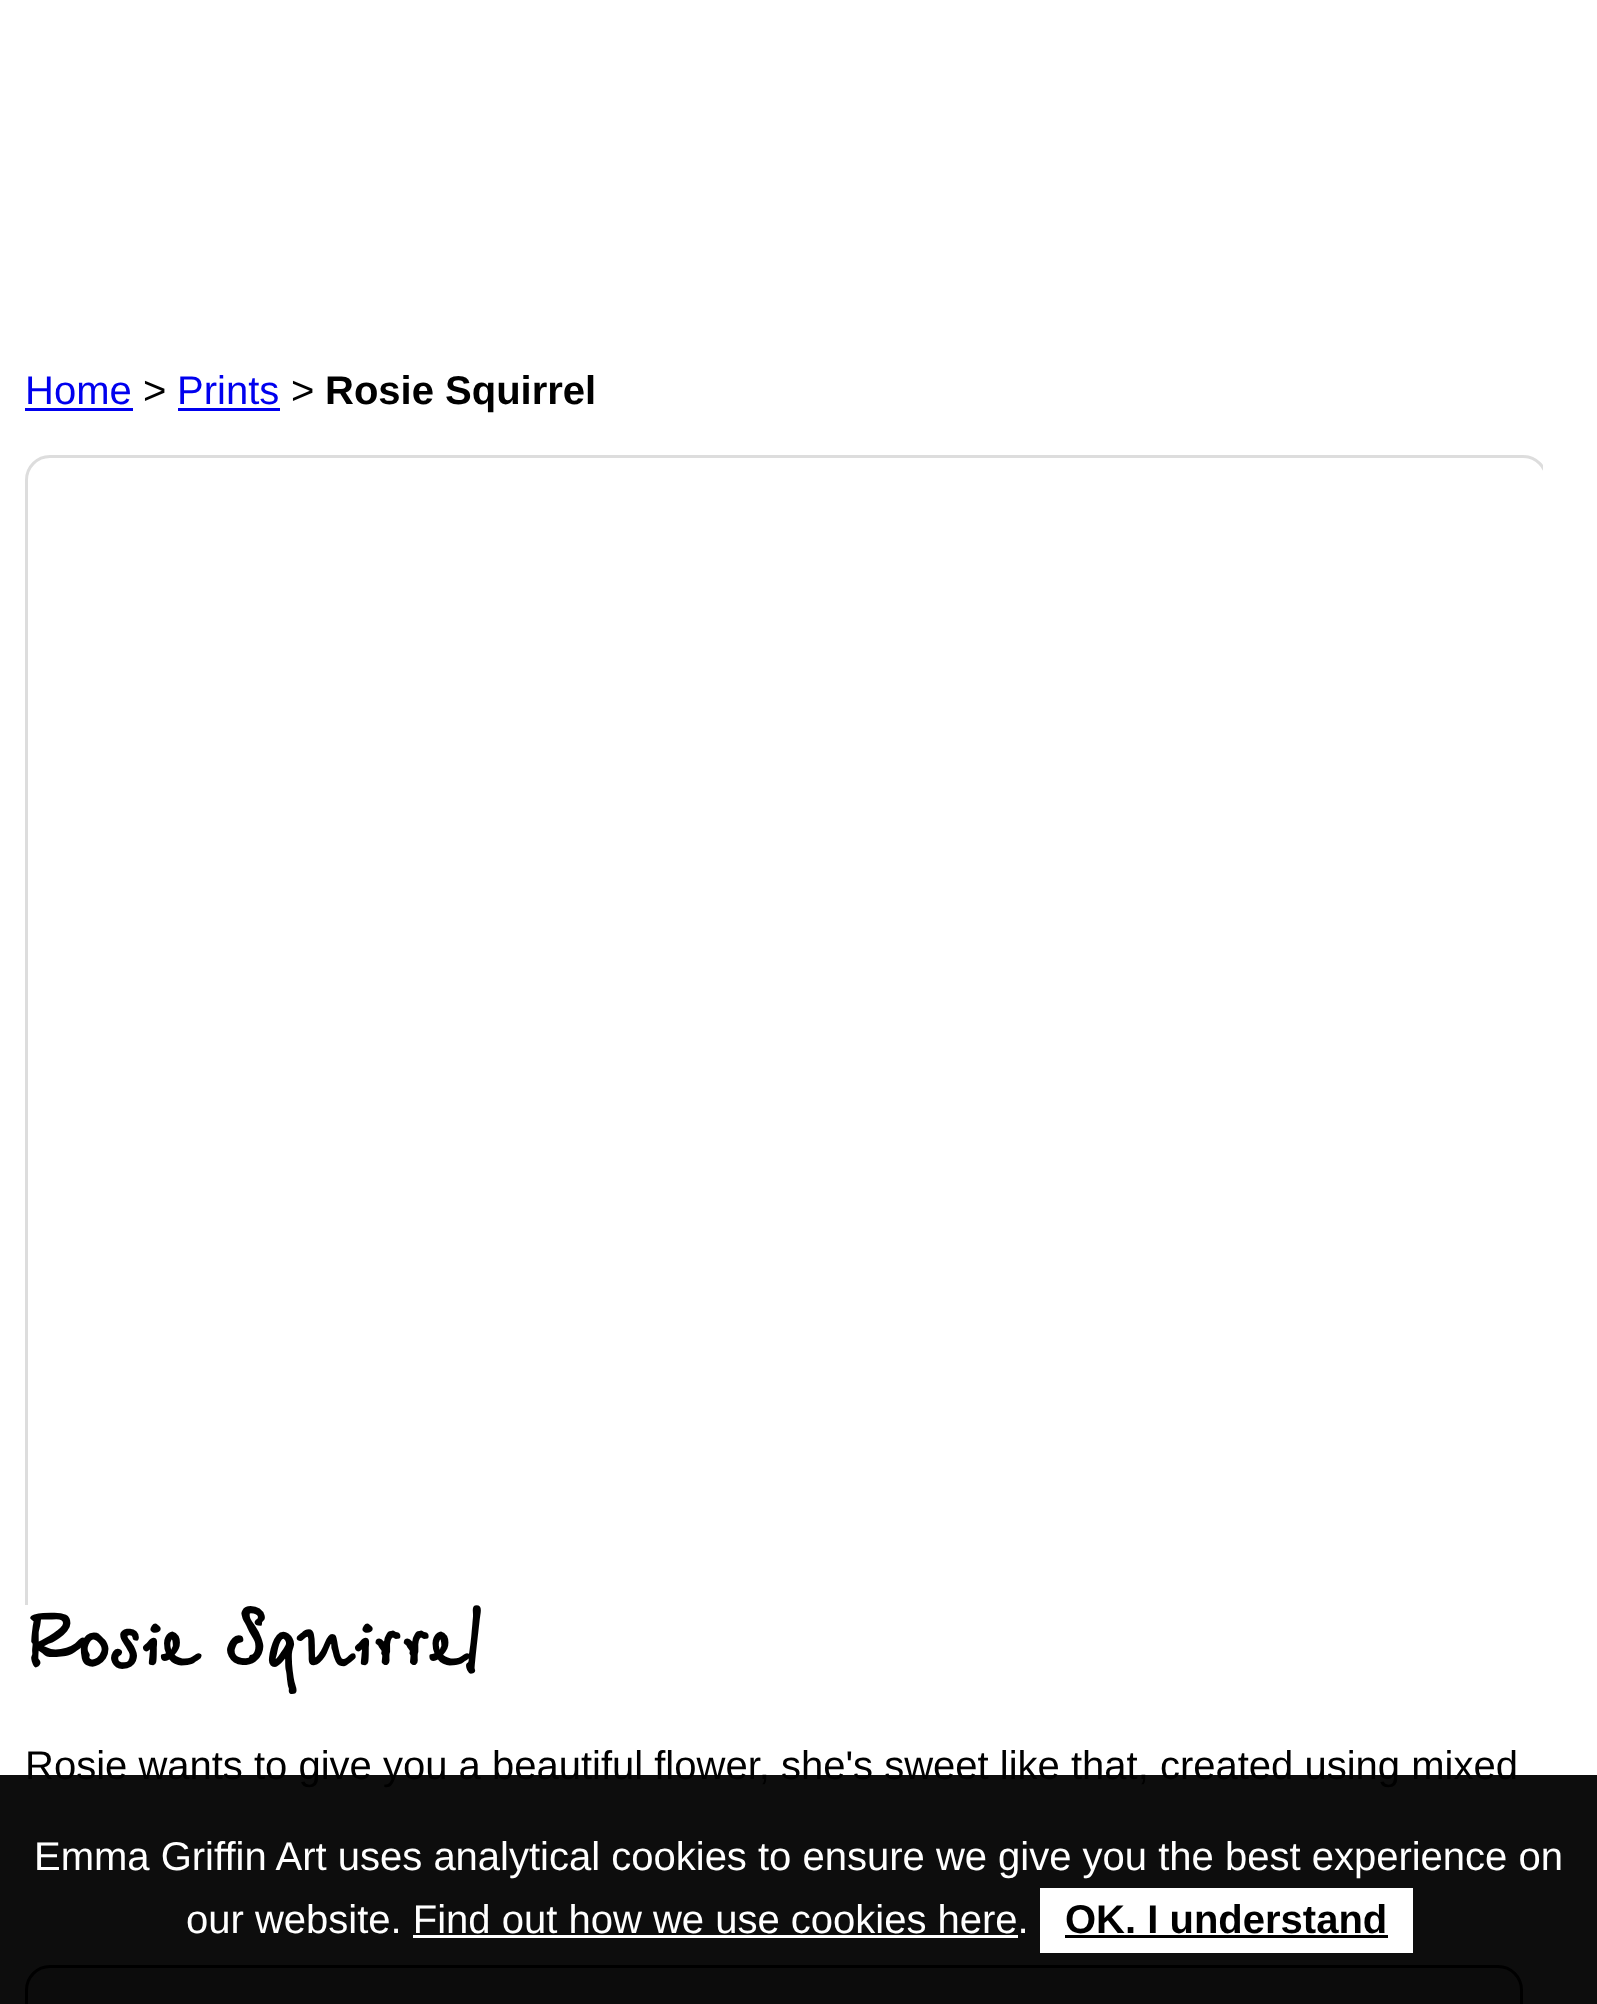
<?xml version="1.0" encoding="UTF-8"?>
<svg xmlns="http://www.w3.org/2000/svg" xmlns:xlink="http://www.w3.org/1999/xlink" width="1597" height="2004">
  <defs>
    <clipPath id="clip1"><rect x="25" y="455" width="1518" height="1150" /></clipPath>
  </defs>
  <rect width="100%" height="100%" fill="#ffffff" />
  <rect x="25" y="408" width="108" height="3" fill="#0000ee" />
  <rect x="178" y="408" width="102" height="3" fill="#0000ee" />
  <rect x="26.5" y="1966.5" width="1495" height="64" rx="23.5" fill="#dddddd" stroke="#000000" stroke-width="3" />
  <g clip-path="url(#clip1)">
    <rect x="26.5" y="456.5" width="1520" height="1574" rx="23.5" fill="none" stroke="#dddddd" stroke-width="3" />
  </g>
  <text x="25" y="404" style="font-family: Liberation Sans; font-size: 40px; fill: #0000ee">Home</text>
  <text x="143" y="404" style="font-family: Liberation Sans; font-size: 40px; fill: #000000">&gt;</text>
  <text x="177" y="404" style="font-family: Liberation Sans; font-size: 40px; fill: #0000ee">Prints</text>
  <text x="291" y="404" style="font-family: Liberation Sans; font-size: 40px; fill: #000000">&gt;</text>
  <text x="325" y="404" style="font-family: Liberation Sans; font-size: 40px; font-weight: bold; fill: #000000">Rosie Squirrel</text>
  <text x="25" y="1664" style="font-family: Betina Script; font-size: 87.5px; font-weight: bold; fill: #000000">Rosie Squirrel</text>
  <text x="25" y="1779" style="font-family: Liberation Sans; font-size: 40px; fill: #000000">Rosie wants to give you a beautiful flower, she's sweet like that, created using mixed</text>
  <rect y="1775" width="1597" height="229" fill="#000000" fill-opacity="0.95" />
  <text x="34" y="1870" style="font-family: Liberation Sans; font-size: 40px; fill: #ffffff">Emma Griffin Art uses analytical cookies to ensure we give you the best experience on</text>
  <text x="186" y="1933" style="font-family: Liberation Sans; font-size: 40px; fill: #ffffff">our website. Find out how we use cookies here.</text>
  <rect x="1040" y="1888" width="373" height="65" fill="#ffffff" />
  <text x="1065" y="1933" style="font-family: Liberation Sans; font-size: 40px; font-weight: bold; fill: #000000">OK. I understand</text>
  <rect x="1065" y="1935" width="323" height="3" fill="#000000" />
  <rect x="413" y="1935" width="605" height="3" fill="#ffffff" />
</svg>
